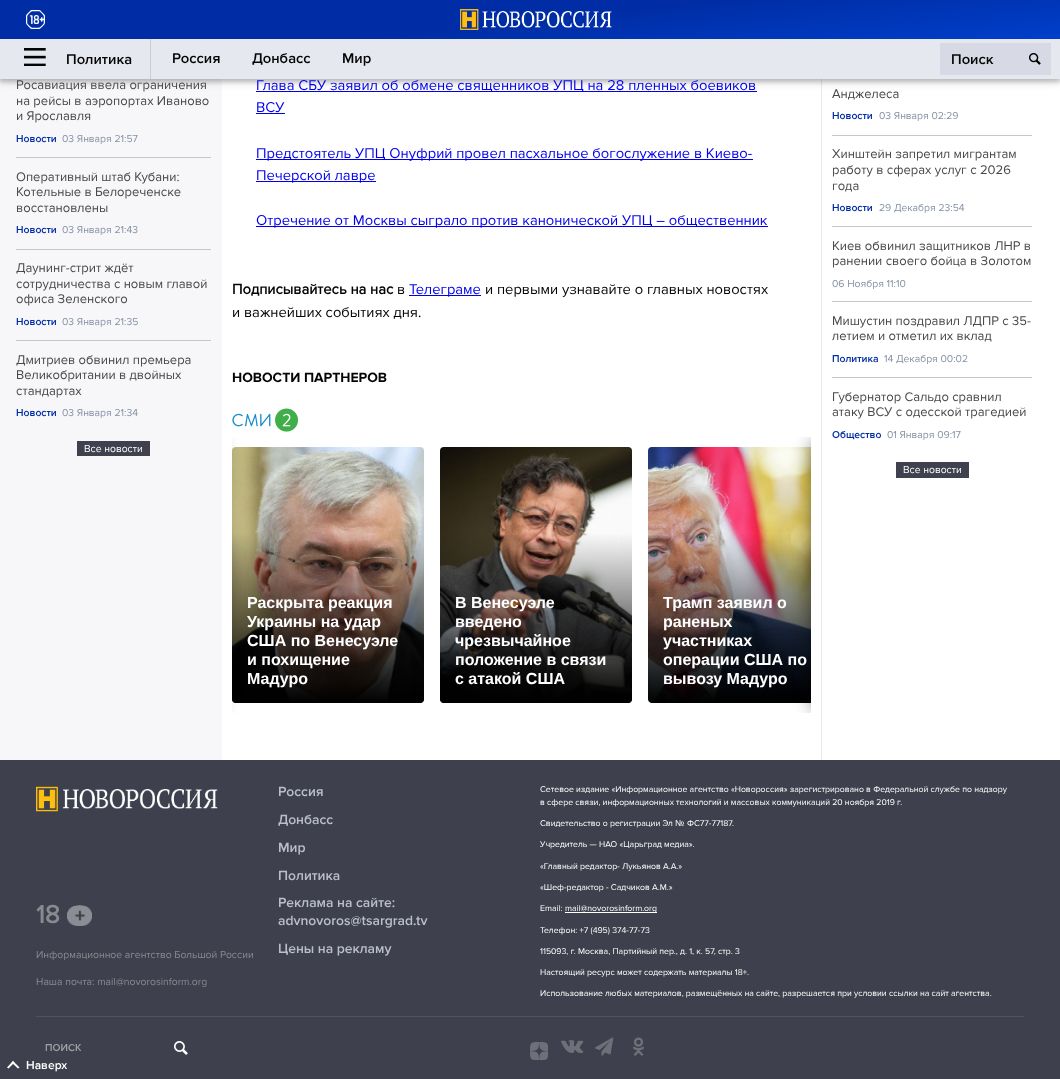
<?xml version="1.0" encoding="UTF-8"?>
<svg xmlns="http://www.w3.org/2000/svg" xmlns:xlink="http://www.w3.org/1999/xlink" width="1060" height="1079">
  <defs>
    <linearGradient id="g1" gradientUnits="userSpaceOnUse" x1="520" y1="-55" x2="540" y2="134"><stop offset="0.4" stop-color="#002da5" /><stop offset="1" stop-color="#0049df" /></linearGradient>
    <linearGradient id="g2" gradientUnits="userSpaceOnUse" x1="328" y1="703" x2="328" y2="533"><stop offset="0" stop-color="#000000" /><stop offset="1" stop-color="#000000" stop-opacity="0" /></linearGradient>
    <clipPath id="clip1"><rect x="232" y="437" width="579" height="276" /></clipPath>
    <linearGradient id="g3" gradientUnits="userSpaceOnUse" x1="536" y1="703" x2="536" y2="533"><stop offset="0" stop-color="#000000" /><stop offset="1" stop-color="#000000" stop-opacity="0" /></linearGradient>
    <linearGradient id="g4" gradientUnits="userSpaceOnUse" x1="744" y1="703" x2="744" y2="533"><stop offset="0" stop-color="#000000" /><stop offset="1" stop-color="#000000" stop-opacity="0" /></linearGradient>
  </defs>
  <rect width="100%" height="100%" fill="#ffffff" />
  <rect y="79" width="222" height="681" fill="#f7f7fa" />
  <rect x="821" y="79" width="1" height="681" fill="#e6e8ef" />
  <rect x="-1" y="1" width="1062" height="81" fill="#000000" fill-opacity="0.2" filter="blur(2px)" />
  <rect x="256" y="91" width="501" height="1" fill="#0000ee" />
  <rect y="4" width="1060" height="79" fill="#000000" fill-opacity="0.1" filter="blur(4px)" />
  <rect width="1060" height="39" fill="url(#g1)" />
  <image x="26" y="10" width="19" height="19" xlink:href="image1.png" />
  <image x="460" y="9" width="152" height="21" xlink:href="image2.png" />
  <rect y="39" width="1060" height="40" fill="#e6e8ef" />
  <rect x="150" y="39" width="1" height="40" fill="#cdcdcf" />
  <image x="24" y="48" width="22" height="18" xlink:href="image3.png" />
  <rect x="940" y="43" width="111" height="32" fill="#d7dae4" />
  <image x="1029" y="53" width="12" height="12" xlink:href="image4.png" />
  <rect x="16" y="157" width="195" height="1" fill="#c5c6cd" />
  <rect x="16" y="249" width="195" height="1" fill="#c5c6cd" />
  <rect x="16" y="340" width="195" height="1" fill="#c5c6cd" />
  <rect x="77" y="441" width="73" height="15" fill="#3f414f" />
  <rect x="256" y="113" width="29" height="1" fill="#0000ee" />
  <rect x="256" y="159" width="497" height="1" fill="#0000ee" />
  <rect x="256" y="181" width="120" height="1" fill="#0000ee" />
  <rect x="256" y="226" width="512" height="1" fill="#0000ee" />
  <rect x="409" y="295" width="72" height="1" fill="#0000ee" />
  <image x="232" y="408" width="67" height="24" xlink:href="image5.png" />
  <image x="232" y="447" width="192" height="256" xlink:href="image6.png" />
  <path d="M 232 533 h 192 v 166 c 0 2 -2 4 -4 4 h -184 c -2 0 -4 -2 -4 -4 z" fill="url(#g2)" />
  <g clip-path="url(#clip1)">
    <rect x="207" y="442" width="10" height="266" fill="#000000" filter="blur(10px)" />
    <rect x="188" y="541" width="44" height="68" rx="3" fill="#000000" fill-opacity="0.18" filter="blur(10px)" />
  </g>
  <image x="440" y="447" width="192" height="256" xlink:href="image7.png" />
  <path d="M 440 533 h 192 v 166 c 0 2 -2 4 -4 4 h -184 c -2 0 -4 -2 -4 -4 z" fill="url(#g3)" />
  <image x="648" y="447" width="163" height="256" xlink:href="image8.png" />
  <path d="M 648 533 h 163 v 170 h -159 c -2 0 -4 -2 -4 -4 z" fill="url(#g4)" />
  <g clip-path="url(#clip1)">
    <rect x="816" y="442" width="10" height="266" fill="#000000" filter="blur(10px)" />
  </g>
  <rect x="832" y="135" width="200" height="1" fill="#c5c6cd" />
  <rect x="832" y="226" width="200" height="1" fill="#c5c6cd" />
  <rect x="832" y="301" width="200" height="1" fill="#c5c6cd" />
  <rect x="832" y="377" width="200" height="1" fill="#c5c6cd" />
  <rect x="896" y="462" width="73" height="16" fill="#3f414f" />
  <rect y="760" width="1060" height="319" fill="#3e404d" />
  <image x="36" y="786" width="182" height="26" xlink:href="image9.png" />
  <image x="67" y="905" width="25" height="21" xlink:href="image10.png" />
  <rect x="565" y="912" width="92" height="1" fill="#ffffff" />
  <rect x="36" y="1016" width="988" height="1" fill="#505262" />
  <image x="174" y="1041" width="14" height="14" xlink:href="image11.png" />
  <image x="530" y="1042" width="18" height="18" xlink:href="image12.png" />
  <image x="561" y="1040" width="23" height="13" xlink:href="image13.png" />
  <image x="595" y="1037" width="19" height="19" xlink:href="image14.png" />
  <image x="633" y="1037" width="11" height="19" xlink:href="image15.png" />
  <path d="M 13 1061 l 6.5 6.5 l -1.5 1 l -6.5 -6 z" fill="#ffffff" />
  <path d="M 13 1061 l 1.5 1.5 l -6 6 l -1.5 -1 z" fill="#ffffff" />
  <text x="66" y="64" style="font-family: Proxima Nova; font-size: 14.75px; font-weight: 600; fill: #050505">Политика</text>
  <text x="172" y="63" style="font-family: Proxima Nova; font-size: 14.75px; font-weight: 600; fill: #050505">Россия</text>
  <text x="252" y="63" style="font-family: Proxima Nova; font-size: 14.75px; font-weight: 600; fill: #050505">Донбасс</text>
  <text x="342" y="63" style="font-family: Proxima Nova; font-size: 14.75px; font-weight: 600; fill: #050505">Мир</text>
  <text x="951" y="64" style="font-family: Proxima Nova; font-size: 14.75px; font-weight: 600; fill: #050505">Поиск</text>
  <text x="16" y="89" style="font-family: Proxima Nova; font-size: 13px; fill: #484848">Росавиация ввела ограничения</text>
  <text x="16" y="105" style="font-family: Proxima Nova; font-size: 13px; fill: #484848">на рейсы в аэропортах Иваново</text>
  <text x="16" y="120" style="font-family: Proxima Nova; font-size: 13px; fill: #484848">и Ярославля</text>
  <text x="16" y="142" style="font-family: Proxima Nova; font-size: 10.4px; font-weight: 600; fill: #002da5">Новости</text>
  <text x="62" y="142" style="font-family: Proxima Nova; font-size: 10.4px; fill: #8592a5">03 Января 21:57</text>
  <text x="16" y="181" style="font-family: Proxima Nova; font-size: 13px; fill: #484848">Оперативный штаб Кубани:</text>
  <text x="16" y="196" style="font-family: Proxima Nova; font-size: 13px; fill: #484848">Котельные в Белореченске</text>
  <text x="16" y="212" style="font-family: Proxima Nova; font-size: 13px; fill: #484848">восстановлены</text>
  <text x="16" y="233" style="font-family: Proxima Nova; font-size: 10.4px; font-weight: 600; fill: #002da5">Новости</text>
  <text x="62" y="233" style="font-family: Proxima Nova; font-size: 10.4px; fill: #8592a5">03 Января 21:43</text>
  <text x="16" y="272" style="font-family: Proxima Nova; font-size: 13px; fill: #484848">Даунинг-стрит ждёт</text>
  <text x="16" y="288" style="font-family: Proxima Nova; font-size: 13px; fill: #484848">сотрудничества с новым главой</text>
  <text x="16" y="303" style="font-family: Proxima Nova; font-size: 13px; fill: #484848">офиса Зеленского</text>
  <text x="16" y="325" style="font-family: Proxima Nova; font-size: 10.4px; font-weight: 600; fill: #002da5">Новости</text>
  <text x="62" y="325" style="font-family: Proxima Nova; font-size: 10.4px; fill: #8592a5">03 Января 21:35</text>
  <text x="16" y="364" style="font-family: Proxima Nova; font-size: 13px; fill: #484848">Дмитриев обвинил премьера</text>
  <text x="16" y="379" style="font-family: Proxima Nova; font-size: 13px; fill: #484848">Великобритании в двойных</text>
  <text x="16" y="395" style="font-family: Proxima Nova; font-size: 13px; fill: #484848">стандартах</text>
  <text x="16" y="416" style="font-family: Proxima Nova; font-size: 10.4px; font-weight: 600; fill: #002da5">Новости</text>
  <text x="62" y="416" style="font-family: Proxima Nova; font-size: 10.4px; fill: #8592a5">03 Января 21:34</text>
  <text x="84" y="452" style="font-family: Proxima Nova; font-size: 10.4px; fill: #ffffff">Все новости</text>
  <text x="256" y="90" style="font-family: Proxima Nova; font-size: 14.75px; fill: #0000ee">Глава СБУ заявил об обмене священников УПЦ на 28 пленных боевиков</text>
  <text x="256" y="112" style="font-family: Proxima Nova; font-size: 14.75px; fill: #0000ee">ВСУ</text>
  <text x="256" y="158" style="font-family: Proxima Nova; font-size: 14.75px; fill: #0000ee">Предстоятель УПЦ Онуфрий провел пасхальное богослужение в Киево-</text>
  <text x="256" y="180" style="font-family: Proxima Nova; font-size: 14.75px; fill: #0000ee">Печерской лавре</text>
  <text x="256" y="225" style="font-family: Proxima Nova; font-size: 14.75px; fill: #0000ee">Отречение от Москвы сыграло против канонической УПЦ – общественник</text>
  <text x="232" y="294" style="font-family: Proxima Nova; font-size: 14.75px; font-weight: bold; fill: #050505">Подписывайтесь на нас</text>
  <text x="397" y="294" style="font-family: Proxima Nova; font-size: 14.75px; fill: #050505">в</text>
  <text x="409" y="294" style="font-family: Proxima Nova; font-size: 14.75px; fill: #0000ee">Телеграме</text>
  <text x="485" y="294" style="font-family: Proxima Nova; font-size: 14.75px; fill: #050505">и первыми узнавайте о главных новостях</text>
  <text x="232" y="317" style="font-family: Proxima Nova; font-size: 14.75px; fill: #050505">и важнейших событиях дня.</text>
  <text x="232" y="382" style="font-family: 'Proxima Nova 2'; font-size: 13.9px; font-weight: bold; fill: #050505">НОВОСТИ ПАРТНЕРОВ</text>
  <text x="247" y="608" style="font-family: Liberation Sans; font-size: 16px; font-weight: bold; fill: #ffffff">Раскрыта реакция</text>
  <text x="247" y="627" style="font-family: Liberation Sans; font-size: 16px; font-weight: bold; fill: #ffffff">Украины на удар</text>
  <text x="247" y="646" style="font-family: Liberation Sans; font-size: 16px; font-weight: bold; fill: #ffffff">США по Венесуэле</text>
  <text x="247" y="665" style="font-family: Liberation Sans; font-size: 16px; font-weight: bold; fill: #ffffff">и похищение</text>
  <text x="247" y="684" style="font-family: Liberation Sans; font-size: 16px; font-weight: bold; fill: #ffffff">Мадуро</text>
  <text x="455" y="608" style="font-family: Liberation Sans; font-size: 16px; font-weight: bold; fill: #ffffff">В Венесуэле</text>
  <text x="455" y="627" style="font-family: Liberation Sans; font-size: 16px; font-weight: bold; fill: #ffffff">введено</text>
  <text x="455" y="646" style="font-family: Liberation Sans; font-size: 16px; font-weight: bold; fill: #ffffff">чрезвычайное</text>
  <text x="455" y="665" style="font-family: Liberation Sans; font-size: 16px; font-weight: bold; fill: #ffffff">положение в связи</text>
  <text x="455" y="684" style="font-family: Liberation Sans; font-size: 16px; font-weight: bold; fill: #ffffff">с атакой США</text>
  <text x="663" y="608" style="font-family: Liberation Sans; font-size: 16px; font-weight: bold; fill: #ffffff">Трамп заявил о</text>
  <text x="663" y="627" style="font-family: Liberation Sans; font-size: 16px; font-weight: bold; fill: #ffffff">раненых</text>
  <text x="663" y="646" style="font-family: Liberation Sans; font-size: 16px; font-weight: bold; fill: #ffffff">участниках</text>
  <text x="663" y="665" style="font-family: Liberation Sans; font-size: 16px; font-weight: bold; fill: #ffffff">операции США по</text>
  <text x="663" y="684" style="font-family: Liberation Sans; font-size: 16px; font-weight: bold; fill: #ffffff">вывозу Мадуро</text>
  <text x="832" y="98" style="font-family: Proxima Nova; font-size: 13px; fill: #484848">Анджелеса</text>
  <text x="832" y="119" style="font-family: Proxima Nova; font-size: 10.4px; font-weight: 600; fill: #002da5">Новости</text>
  <text x="879" y="119" style="font-family: Proxima Nova; font-size: 10.4px; fill: #8592a5">03 Января 02:29</text>
  <text x="832" y="158" style="font-family: Proxima Nova; font-size: 13px; fill: #484848">Хинштейн запретил мигрантам</text>
  <text x="832" y="174" style="font-family: Proxima Nova; font-size: 13px; fill: #484848">работу в сферах услуг с 2026</text>
  <text x="832" y="190" style="font-family: Proxima Nova; font-size: 13px; fill: #484848">года</text>
  <text x="832" y="211" style="font-family: Proxima Nova; font-size: 10.4px; font-weight: 600; fill: #002da5">Новости</text>
  <text x="879" y="211" style="font-family: Proxima Nova; font-size: 10.4px; fill: #8592a5">29 Декабря 23:54</text>
  <text x="832" y="250" style="font-family: Proxima Nova; font-size: 13px; fill: #484848">Киев обвинил защитников ЛНР в</text>
  <text x="832" y="265" style="font-family: Proxima Nova; font-size: 13px; fill: #484848">ранении своего бойца в Золотом</text>
  <text x="832" y="287" style="font-family: Proxima Nova; font-size: 10.4px; fill: #8592a5">06 Ноября 11:10</text>
  <text x="832" y="325" style="font-family: Proxima Nova; font-size: 13px; fill: #484848">Мишустин поздравил ЛДПР с 35-</text>
  <text x="832" y="340" style="font-family: Proxima Nova; font-size: 13px; fill: #484848">летием и отметил их вклад</text>
  <text x="832" y="362" style="font-family: Proxima Nova; font-size: 10.4px; font-weight: 600; fill: #002da5">Политика</text>
  <text x="884" y="362" style="font-family: Proxima Nova; font-size: 10.4px; fill: #8592a5">14 Декабря 00:02</text>
  <text x="832" y="401" style="font-family: Proxima Nova; font-size: 13px; fill: #484848">Губернатор Сальдо сравнил</text>
  <text x="832" y="416" style="font-family: Proxima Nova; font-size: 13px; fill: #484848">атаку ВСУ с одесской трагедией</text>
  <text x="832" y="438" style="font-family: Proxima Nova; font-size: 10.4px; font-weight: 600; fill: #002da5">Общество</text>
  <text x="887" y="438" style="font-family: Proxima Nova; font-size: 10.4px; fill: #8592a5">01 Января 09:17</text>
  <text x="903" y="473" style="font-family: Proxima Nova; font-size: 10.4px; fill: #ffffff">Все новости</text>
  <text x="36" y="923" style="font-family: Proxima Nova; font-size: 26px; font-weight: bold; fill: #888a90">18</text>
  <text x="36" y="958" style="font-family: Proxima Nova; font-size: 10.4px; fill: #888a90">Информационное агентство Большой России</text>
  <text x="36" y="985" style="font-family: Proxima Nova; font-size: 10.4px; fill: #888a90">Наша почта: mail@novorosinform.org</text>
  <text x="278" y="796" style="font-family: Proxima Nova; font-size: 13.9px; font-weight: 600; fill: #babeca">Россия</text>
  <text x="278" y="824" style="font-family: Proxima Nova; font-size: 13.9px; font-weight: 600; fill: #babeca">Донбасс</text>
  <text x="278" y="852" style="font-family: Proxima Nova; font-size: 13.9px; font-weight: 600; fill: #babeca">Мир</text>
  <text x="278" y="880" style="font-family: Proxima Nova; font-size: 13.9px; font-weight: 600; fill: #babeca">Политика</text>
  <text x="278" y="907" style="font-family: Proxima Nova; font-size: 13.9px; font-weight: 600; fill: #babeca">Реклама на сайте:</text>
  <text x="278" y="925" style="font-family: Proxima Nova; font-size: 13.9px; font-weight: 600; fill: #babeca">advnovoros@tsargrad.tv</text>
  <text x="278" y="953" style="font-family: Proxima Nova; font-size: 13.9px; font-weight: 600; fill: #babeca">Цены на рекламу</text>
  <text x="540" y="792" style="font-family: Proxima Nova; font-size: 8.7px; fill: #ffffff">Сетевое издание «Информационное агентство «Новороссия» зарегистрировано в Федеральной службе по надзору</text>
  <text x="540" y="805" style="font-family: Proxima Nova; font-size: 8.7px; fill: #ffffff">в сфере связи, информационных технологий и массовых коммуникаций 20 ноября 2019 г.</text>
  <text x="540" y="826" style="font-family: Proxima Nova; font-size: 8.7px; fill: #ffffff">Свидетельство о регистрации Эл</text>
  <text x="675" y="826" style="font-family: Liberation Sans; font-size: 8.7px; fill: #ffffff">№</text>
  <text x="687" y="826" style="font-family: Proxima Nova; font-size: 8.7px; fill: #ffffff">ФС77-77187.</text>
  <text x="540" y="847" style="font-family: Proxima Nova; font-size: 8.7px; fill: #ffffff">Учредитель — НАО «Царьград медиа».</text>
  <text x="540" y="869" style="font-family: Proxima Nova; font-size: 8.7px; fill: #ffffff">«Главный редактор- Лукьянов А.А.»</text>
  <text x="540" y="890" style="font-family: Proxima Nova; font-size: 8.7px; fill: #ffffff">«Шеф-редактор - Садчиков А.М.»</text>
  <text x="540" y="911" style="font-family: Proxima Nova; font-size: 8.7px; fill: #ffffff">Email:</text>
  <text x="565" y="911" style="font-family: Proxima Nova; font-size: 8.7px; fill: #ffffff">mail@novorosinform.org</text>
  <text x="540" y="933" style="font-family: Proxima Nova; font-size: 8.7px; fill: #ffffff">Телефон: +7 (495) 374-77-73</text>
  <text x="540" y="954" style="font-family: Proxima Nova; font-size: 8.7px; fill: #ffffff">115093, г. Москва, Партийный пер., д. 1, к. 57, стр. 3</text>
  <text x="540" y="975" style="font-family: Proxima Nova; font-size: 8.7px; fill: #ffffff">Настоящий ресурс может содержать материалы 18+.</text>
  <text x="540" y="996" style="font-family: Proxima Nova; font-size: 8.7px; fill: #ffffff">Использование любых материалов, размещённых на сайте, разрешается при условии ссылки на сайт агентства.</text>
  <text x="45" y="1051" style="font-family: Proxima Nova; font-size: 10.4px; font-weight: 600; fill: #9fa0a6">ПОИСК</text>
  <text x="26" y="1069" style="font-family: Proxima Nova; font-size: 12px; font-weight: 600; fill: #ffffff">Наверх</text>
</svg>
